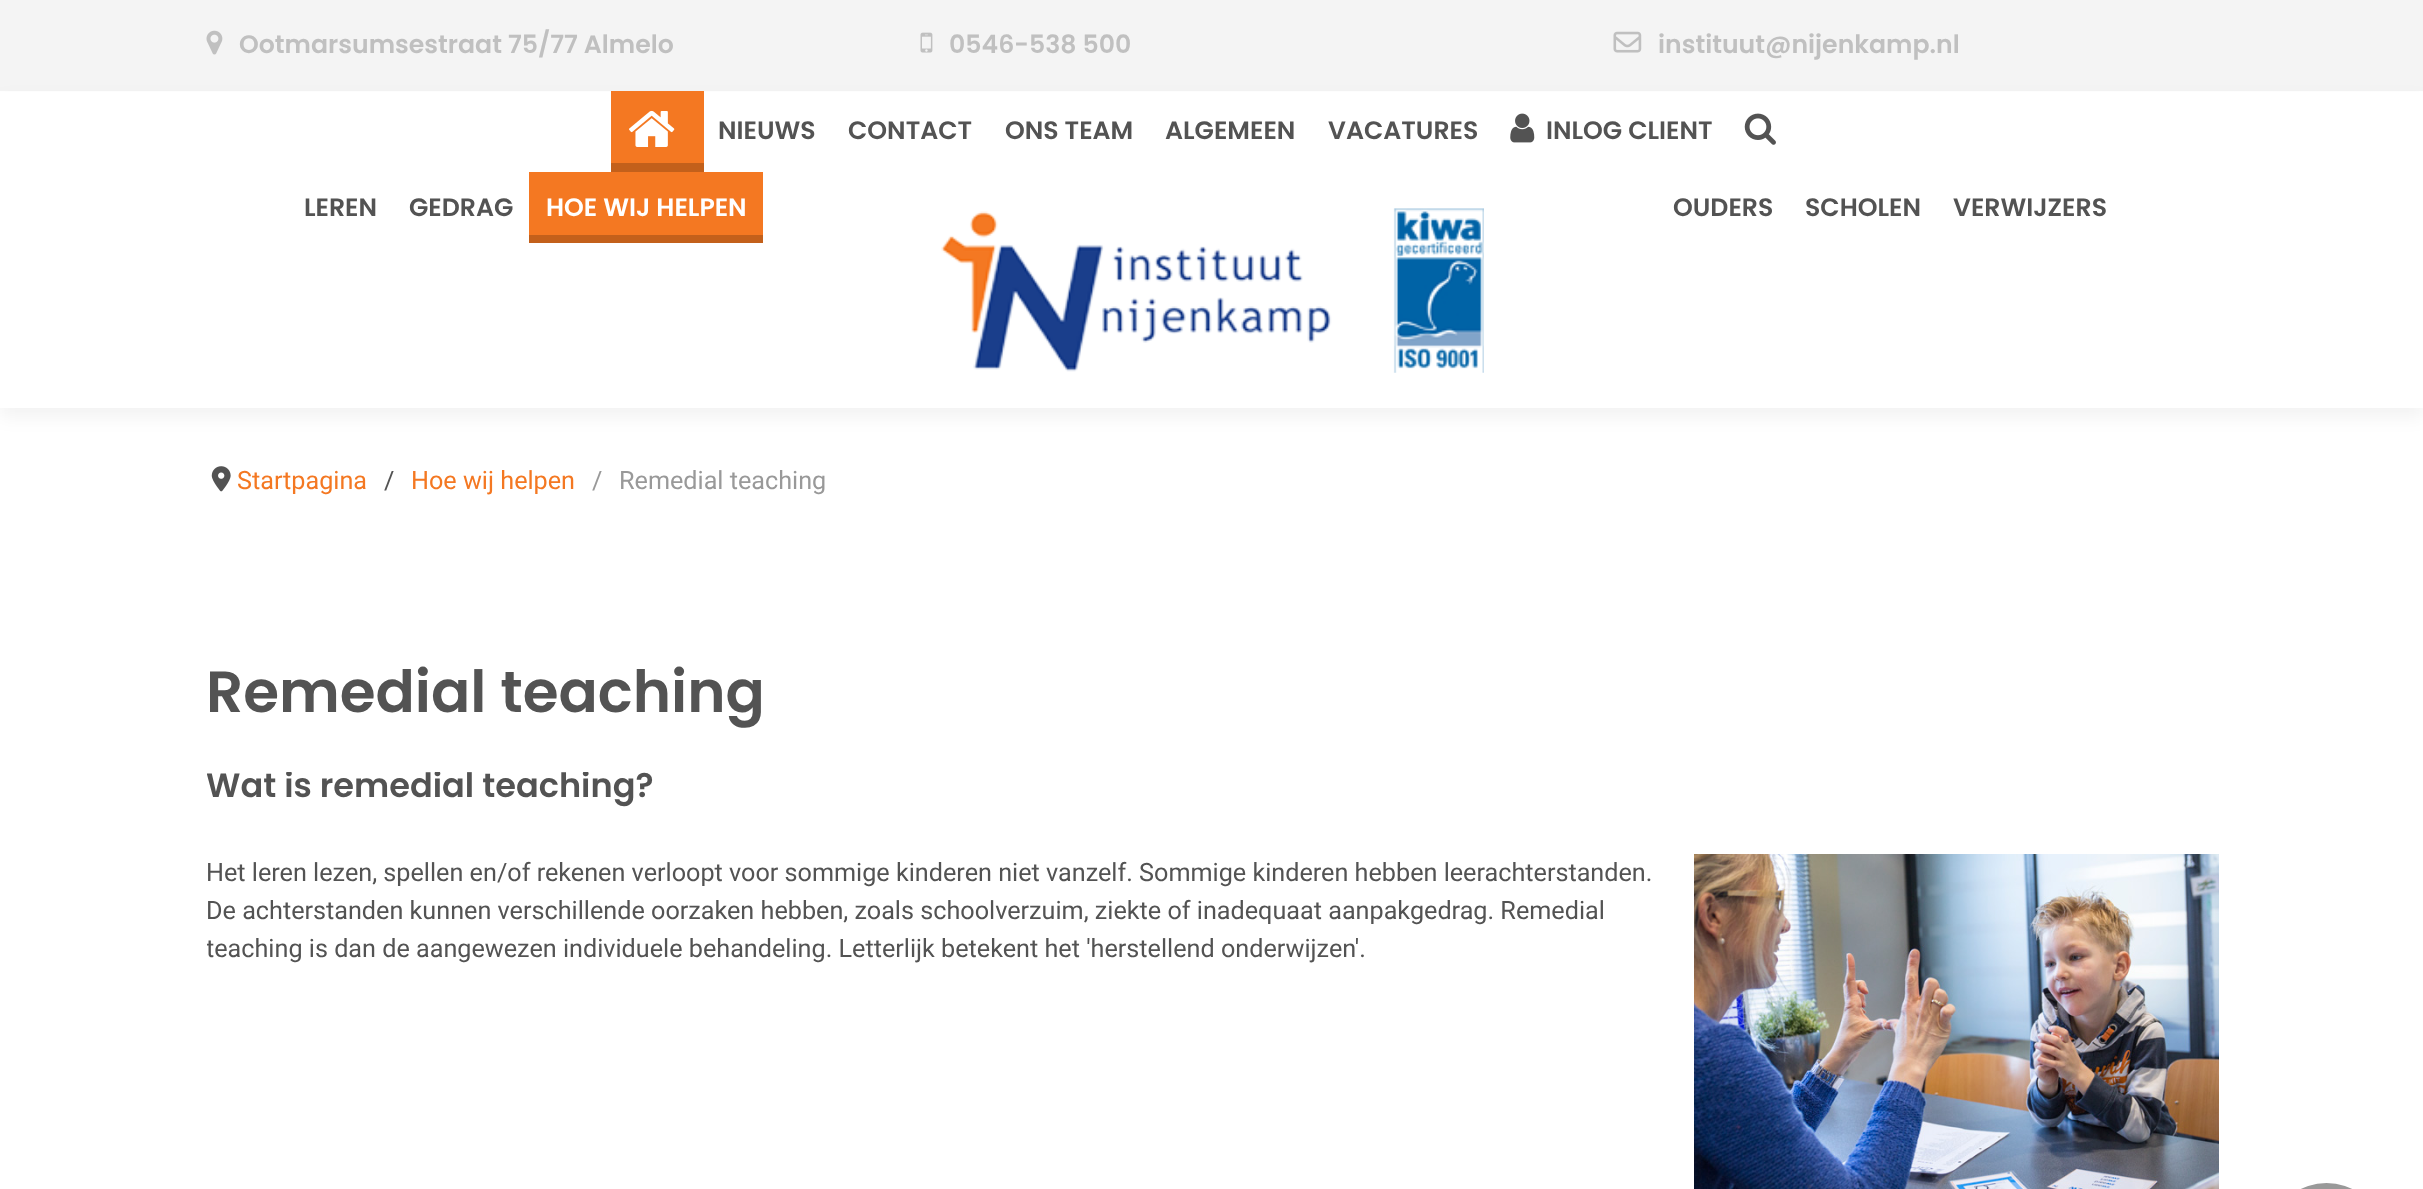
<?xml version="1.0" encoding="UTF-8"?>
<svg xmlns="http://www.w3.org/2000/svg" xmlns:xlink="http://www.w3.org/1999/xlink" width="2423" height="1189">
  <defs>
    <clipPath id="clip1"><rect x="207" y="772" width="2012" height="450" /></clipPath>
  </defs>
  <rect width="100%" height="100%" fill="#ffffff" />
  <rect width="2423" height="91" fill="#f4f4f4" />
  <image x="206" y="30" width="17" height="25" xlink:href="image1.png" />
  <image x="920" y="32" width="13" height="21" xlink:href="image2.png" />
  <image x="1613" y="31" width="29" height="22" xlink:href="image3.png" />
  <rect y="100" width="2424" height="317" fill="#000000" fill-opacity="0.05" filter="blur(9px)" />
  <rect y="92" width="2423" height="316" fill="#ffffff" />
  <rect x="611" y="91" width="93" height="72" fill="#f47822" />
  <rect x="611" y="163" width="93" height="9" fill="#c3601b" />
  <image x="629" y="110" width="46" height="37" xlink:href="image4.png" />
  <image x="1510" y="113" width="25" height="30" xlink:href="image5.png" />
  <image x="1744" y="113" width="32" height="32" xlink:href="image6.png" />
  <rect x="529" y="172" width="234" height="63" fill="#f47822" />
  <rect x="529" y="235" width="234" height="8" fill="#c3601b" />
  <image x="941" y="208" width="543" height="165" xlink:href="image7.png" />
  <image x="211" y="466" width="20" height="26" xlink:href="image8.png" />
  <image x="1694" y="854" width="525" height="335" xlink:href="image9.png" />
  <ellipse cx="2326.5" cy="1221.5" rx="48" ry="38.5" fill="#999999" />
  <text x="239" y="53" style="font-family: Poppins; font-size: 25.2px; font-weight: 600; fill: #c0c0c0">Ootmarsumsestraat 75/77 Almelo</text>
  <text x="949" y="53" style="font-family: Poppins; font-size: 25.2px; font-weight: 600; fill: #c0c0c0">0546-538 500</text>
  <text x="1658" y="53" style="font-family: Poppins; font-size: 25.2px; font-weight: 600; fill: #c0c0c0">instituut@nijenkamp.nl</text>
  <text x="718" y="139" style="font-family: Poppins; font-size: 25.2px; font-weight: 600; fill: #535353">NIEUWS</text>
  <text x="848" y="139" style="font-family: Poppins; font-size: 25.2px; font-weight: 600; fill: #535353">CONTACT</text>
  <text x="1005" y="139" style="font-family: Poppins; font-size: 25.2px; font-weight: 600; fill: #535353">ONS TEAM</text>
  <text x="1165" y="139" style="font-family: Poppins; font-size: 25.2px; font-weight: 600; fill: #535353">ALGEMEEN</text>
  <text x="1328" y="139" style="font-family: Poppins; font-size: 25.2px; font-weight: 600; fill: #535353">VACATURES</text>
  <text x="1546" y="139" style="font-family: Poppins; font-size: 25.2px; font-weight: 600; fill: #535353">INLOG CLIENT</text>
  <text x="304" y="216" style="font-family: Poppins; font-size: 25.2px; font-weight: 600; fill: #535353">LEREN</text>
  <text x="409" y="216" style="font-family: Poppins; font-size: 25.2px; font-weight: 600; fill: #535353">GEDRAG</text>
  <text x="546" y="216" style="font-family: Poppins; font-size: 25.2px; font-weight: 600; fill: #ffffff">HOE WIJ HELPEN</text>
  <text x="1673" y="216" style="font-family: Poppins; font-size: 25.2px; font-weight: 600; fill: #535353">OUDERS</text>
  <text x="1805" y="216" style="font-family: Poppins; font-size: 25.2px; font-weight: 600; fill: #535353">SCHOLEN</text>
  <text x="1953" y="216" style="font-family: Poppins; font-size: 25.2px; font-weight: 600; fill: #535353">VERWIJZERS</text>
  <text x="237" y="489" style="font-family: Roboto; font-size: 25.2px; fill: #f47822">Startpagina</text>
  <text x="384" y="489" style="font-family: Roboto; font-size: 25.2px; fill: #535353">/</text>
  <text x="411" y="489" style="font-family: Roboto; font-size: 25.2px; fill: #f47822">Hoe wij helpen</text>
  <text x="592" y="489" style="font-family: Roboto; font-size: 25.2px; fill: #999999">/</text>
  <text x="619" y="489" style="font-family: Roboto; font-size: 25.2px; fill: #999999">Remedial teaching</text>
  <text x="206" y="712" style="font-family: Poppins; font-size: 58px; font-weight: 600; fill: #535353">Remedial teaching</text>
  <g clip-path="url(#clip1)">
    <text x="206" y="797" style="font-family: Poppins; font-size: 33.6px; font-weight: 600; fill: #535353">Wat is remedial teaching?</text>
  </g>
  <text x="206" y="881" style="font-family: Roboto; font-size: 25.2px; fill: #535353">Het leren lezen, spellen en/of rekenen verloopt voor sommige kinderen niet vanzelf. Sommige kinderen hebben leerachterstanden.</text>
  <text x="206" y="919" style="font-family: Roboto; font-size: 25.2px; fill: #535353">De achterstanden kunnen verschillende oorzaken hebben, zoals schoolverzuim, ziekte of inadequaat aanpakgedrag. Remedial</text>
  <g clip-path="url(#clip1)">
    <text x="206" y="957" style="font-family: Roboto; font-size: 25.2px; fill: #535353">teaching is dan de aangewezen individuele behandeling. Letterlijk betekent het 'herstellend onderwijzen'.</text>
  </g>
</svg>
